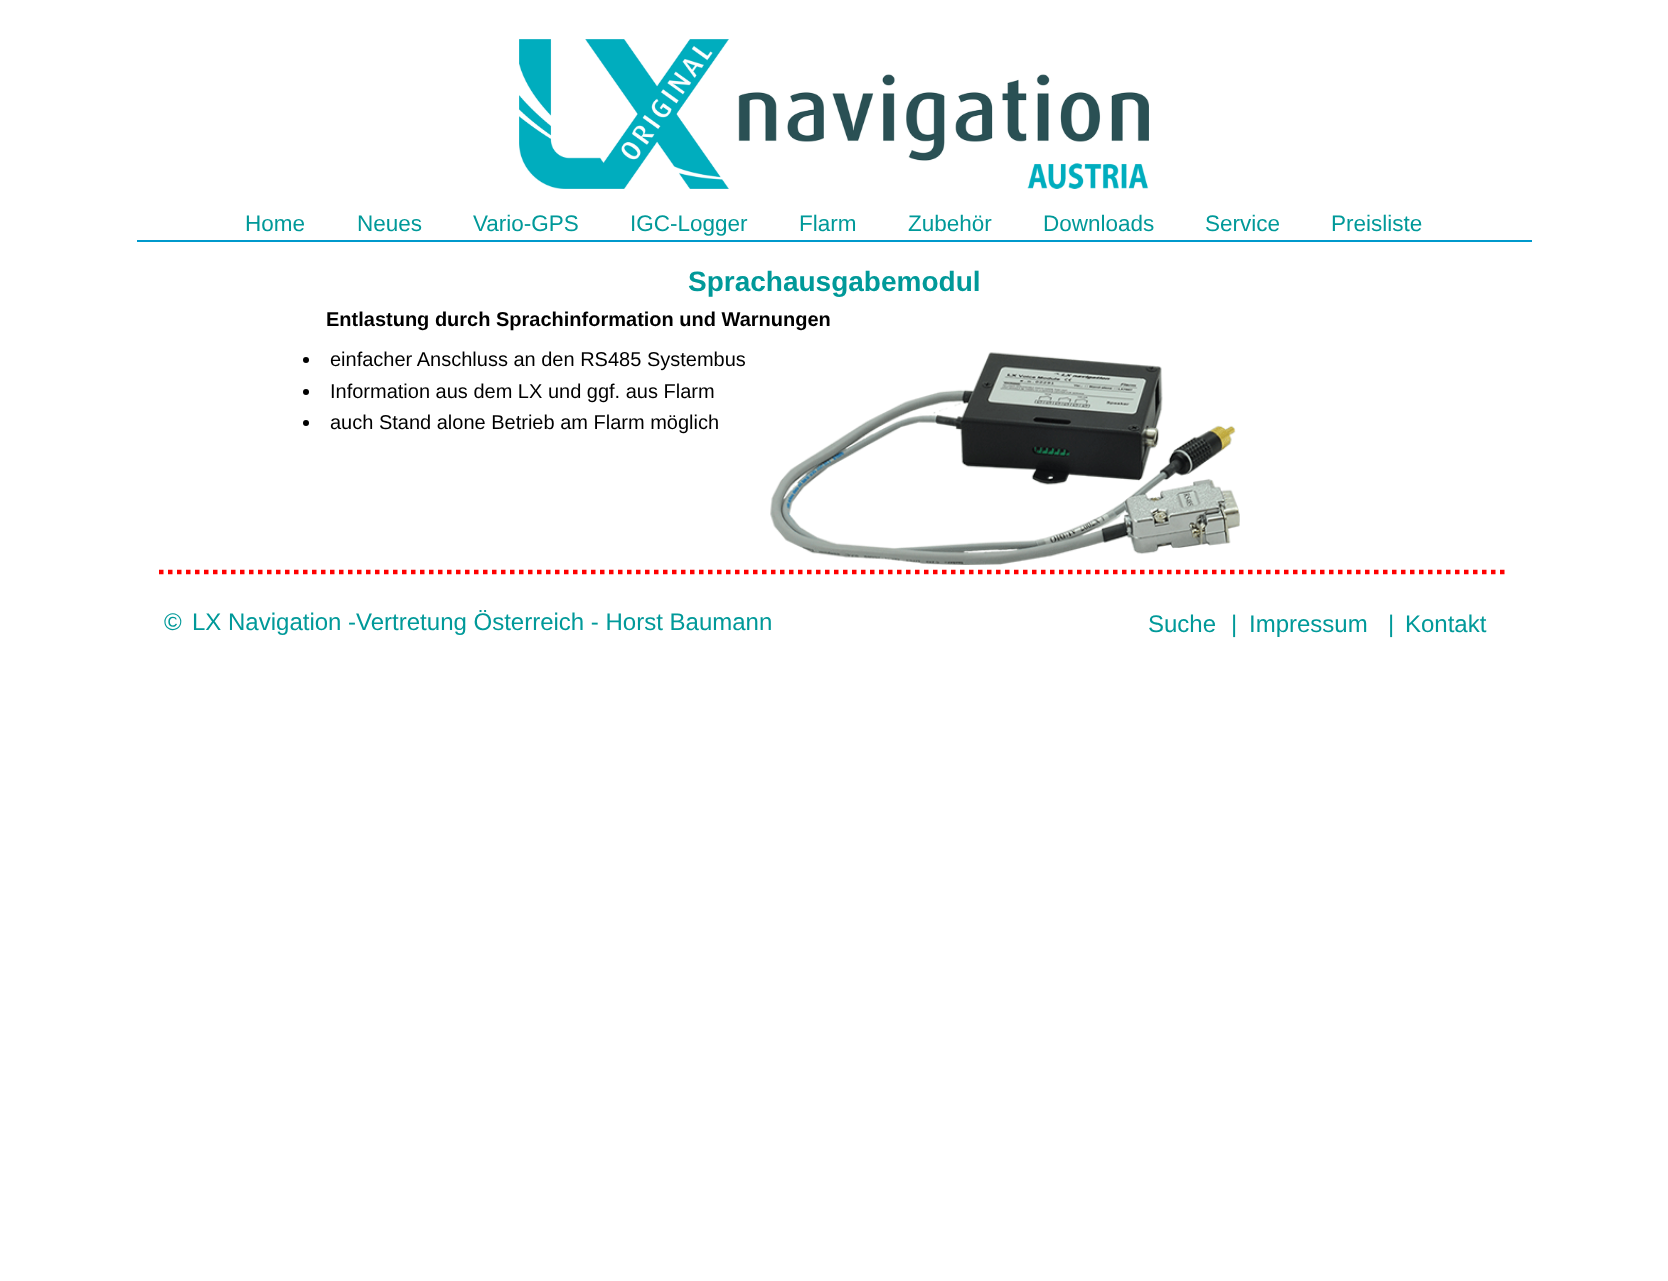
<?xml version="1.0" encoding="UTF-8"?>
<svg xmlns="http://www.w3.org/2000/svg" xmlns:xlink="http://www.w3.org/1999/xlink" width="1668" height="1281">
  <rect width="100%" height="100%" fill="#ffffff" />
  <image x="519" y="39" width="630" height="150" xlink:href="image1.png" />
  <rect x="137" y="240" width="1395" height="2" fill="#0099cc" />
  <image x="770" y="352" width="470" height="213" xlink:href="image2.png" />
  <circle cx="306" cy="360" r="3" fill="#000000" />
  <circle cx="306" cy="392" r="3" fill="#000000" />
  <circle cx="306" cy="423" r="3" fill="#000000" />
  <path d="M 159 572 h 1350" fill="none" stroke="#ff0000" stroke-width="4.5" stroke-dasharray="4.5 4.5" />
  <text x="245" y="231" style="font-family: Liberation Sans; font-size: 22.5px; fill: #009999">Home</text>
  <text x="357" y="231" style="font-family: Liberation Sans; font-size: 22.5px; fill: #009999">Neues</text>
  <text x="473" y="231" style="font-family: Liberation Sans; font-size: 22.5px; fill: #009999">Vario-GPS</text>
  <text x="630" y="231" style="font-family: Liberation Sans; font-size: 22.5px; fill: #009999">IGC-Logger</text>
  <text x="799" y="231" style="font-family: Liberation Sans; font-size: 22.5px; fill: #009999">Flarm</text>
  <text x="908" y="231" style="font-family: Liberation Sans; font-size: 22.5px; fill: #009999">Zubehör</text>
  <text x="1043" y="231" style="font-family: Liberation Sans; font-size: 22.5px; fill: #009999">Downloads</text>
  <text x="1205" y="231" style="font-family: Liberation Sans; font-size: 22.5px; fill: #009999">Service</text>
  <text x="1331" y="231" style="font-family: Liberation Sans; font-size: 22.5px; fill: #009999">Preisliste</text>
  <text x="688" y="291" style="font-family: Liberation Sans; font-size: 28px; font-weight: bold; fill: #009999">Sprachausgabemodul</text>
  <text x="326" y="326" style="font-family: Liberation Sans; font-size: 20px; font-weight: bold; fill: #000000">Entlastung durch Sprachinformation und Warnungen</text>
  <text x="330" y="366" style="font-family: Liberation Sans; font-size: 20px; fill: #000000">einfacher Anschluss an den RS485 Systembus</text>
  <text x="330" y="398" style="font-family: Liberation Sans; font-size: 20px; fill: #000000">Information aus dem LX und ggf. aus Flarm</text>
  <text x="330" y="429" style="font-family: Liberation Sans; font-size: 20px; fill: #000000">auch Stand alone Betrieb am Flarm möglich</text>
  <text x="164" y="630" style="font-family: Liberation Sans; font-size: 24px; fill: #009999">©</text>
  <text x="192" y="630" style="font-family: Liberation Sans; font-size: 24px; fill: #009999">LX Navigation -Vertretung Österreich - Horst Baumann</text>
  <text x="1148" y="632" style="font-family: Liberation Sans; font-size: 24px; fill: #009999">Suche</text>
  <text x="1231" y="632" style="font-family: Liberation Sans; font-size: 24px; fill: #009999">|</text>
  <text x="1249" y="632" style="font-family: Liberation Sans; font-size: 24px; fill: #009999">Impressum</text>
  <text x="1388" y="632" style="font-family: Liberation Sans; font-size: 24px; fill: #009999">|</text>
  <text x="1405" y="632" style="font-family: Liberation Sans; font-size: 24px; fill: #009999">Kontakt</text>
</svg>
